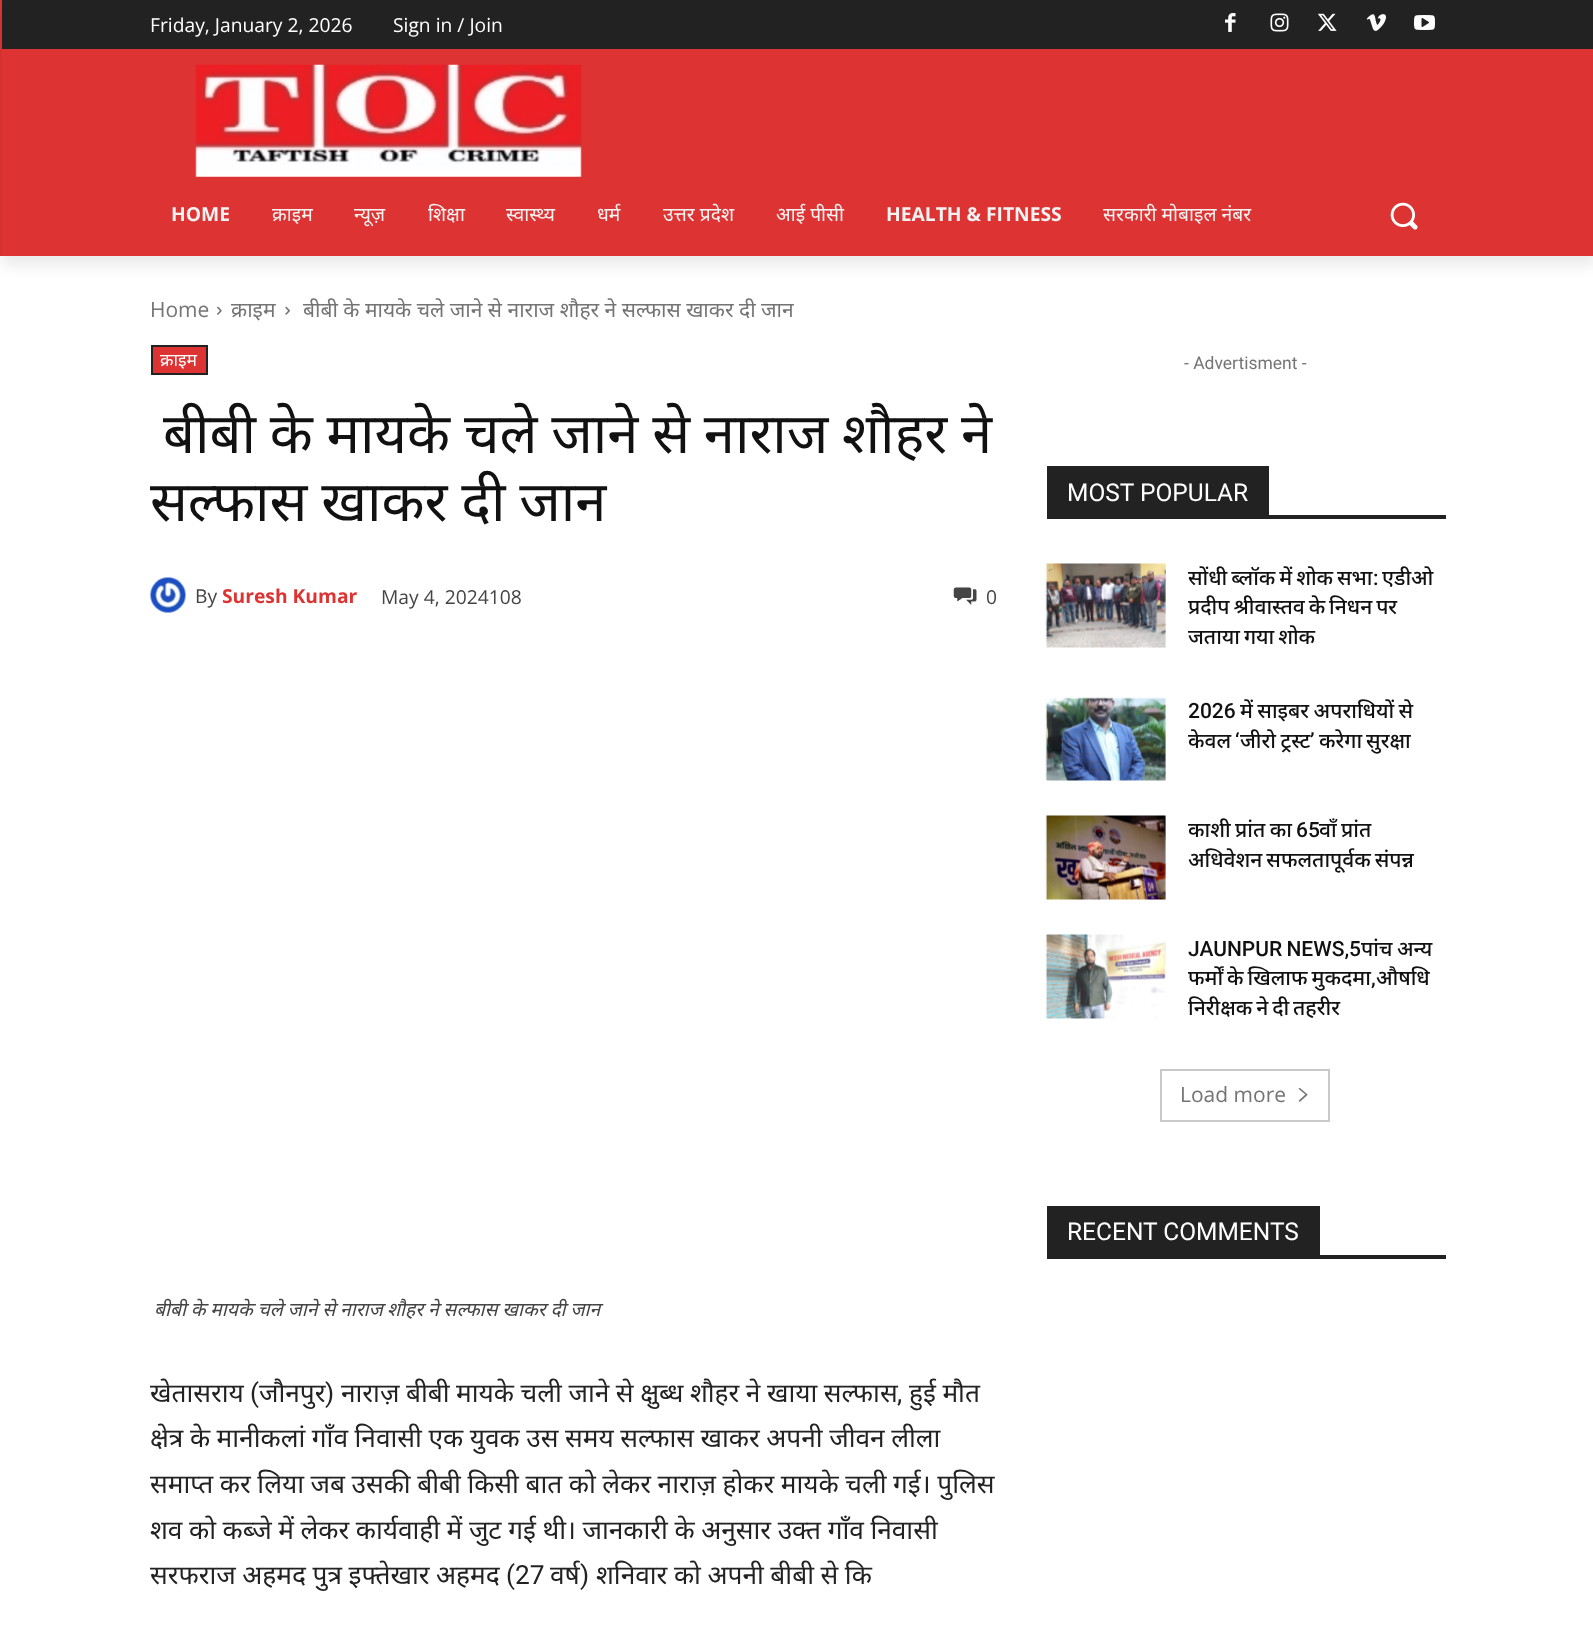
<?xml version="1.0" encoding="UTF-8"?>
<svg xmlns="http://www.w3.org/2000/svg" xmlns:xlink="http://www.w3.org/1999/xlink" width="1593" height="1651">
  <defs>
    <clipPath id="clip1"><path d="M 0 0 h 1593 v 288 h -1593 z m 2 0 h 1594 v 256 h -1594 z" clip-rule="evenodd" /></clipPath>
  </defs>
  <rect width="100%" height="100%" fill="#ffffff" />
  <rect width="1593" height="256" fill="#dd3333" />
  <rect x="2" width="1591" height="49" fill="#222222" />
  <image x="1225" y="13" width="11" height="19" xlink:href="image1.png" />
  <image x="1270" y="13" width="19" height="19" xlink:href="image2.png" />
  <image x="1317" y="13" width="20" height="18" xlink:href="image3.png" />
  <image x="1366" y="14" width="20" height="17" xlink:href="image4.png" />
  <image x="1414" y="15" width="21" height="15" xlink:href="image5.png" />
  <image x="195" y="64" width="387" height="113" xlink:href="image6.png" />
  <g clip-path="url(#clip1)">
    <rect x="2" y="11" width="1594" height="255" fill="#000000" fill-opacity="0.08" filter="blur(7px)" />
  </g>
  <image x="1390" y="202" width="28" height="28" xlink:href="image7.png" />
  <image x="217" y="306" width="5" height="9" xlink:href="image8.png" />
  <image x="285" y="306" width="5" height="9" xlink:href="image9.png" />
  <rect x="152" y="346" width="55" height="28" fill="#dd3333" stroke="#222222" stroke-width="2" />
  <image x="150" y="577" width="36" height="36" xlink:href="image10.png" />
  <image x="953" y="587" width="24" height="18" xlink:href="image11.png" />
  <rect x="1047" y="515" width="399" height="4" fill="#222222" />
  <rect x="1047" y="466" width="222" height="49" fill="#222222" />
  <image x="1045" y="563" width="121" height="85" xlink:href="image12.png" />
  <image x="1045" y="697" width="121" height="84" xlink:href="image13.png" />
  <image x="1045" y="815" width="121" height="85" xlink:href="image14.png" />
  <image x="1045" y="934" width="121" height="85" xlink:href="image15.png" />
  <rect x="1161" y="1070" width="168" height="51" fill="none" stroke="#c9c9c9" stroke-width="2" />
  <image x="1298" y="1087" width="10" height="15" xlink:href="image16.png" />
  <rect x="1047" y="1255" width="399" height="4" fill="#222222" />
  <rect x="1047" y="1206" width="273" height="49" fill="#222222" />
  <text x="150" y="32" style="font-family: Open Sans; font-size: 19.25px; fill: #ffffff">Friday, January 2, 2026</text>
  <text x="393" y="32" style="font-family: Open Sans; font-size: 19.25px; fill: #ffffff">Sign in / Join</text>
  <text x="171" y="221" style="font-family: Open Sans; font-size: 19.25px; font-weight: bold; fill: #f2f2f2">HOME</text>
  <text x="272" y="221" style="font-family: Noto Sans; font-size: 19.25px; fill: #f2f2f2">क्राइम</text>
  <text x="354" y="221" style="font-family: Noto Sans; font-size: 19.25px; fill: #f2f2f2">न्यूज़</text>
  <text x="428" y="221" style="font-family: Noto Sans; font-size: 19.25px; fill: #f2f2f2">शिक्षा</text>
  <text x="506" y="221" style="font-family: Noto Sans; font-size: 19.25px; fill: #f2f2f2">स्वास्थ्य</text>
  <text x="597" y="221" style="font-family: Noto Sans; font-size: 19.25px; fill: #f2f2f2">धर्म</text>
  <text x="663" y="221" style="font-family: Noto Sans; font-size: 19.25px; fill: #f2f2f2">उत्तर प्रदेश</text>
  <text x="776" y="221" style="font-family: Noto Sans; font-size: 19.25px; fill: #f2f2f2">आई पीसी</text>
  <text x="886" y="221" style="font-family: Open Sans; font-size: 19.25px; font-weight: bold; fill: #f2f2f2">HEALTH &amp; FITNESS</text>
  <text x="1103" y="221" style="font-family: Noto Sans; font-size: 19.25px; fill: #f2f2f2">सरकारी मोबाइल नंबर</text>
  <text x="150" y="317" style="font-family: Open Sans; font-size: 21px; fill: #747474">Home</text>
  <text x="231" y="317" style="font-family: Noto Sans; font-size: 21px; fill: #747474">क्राइम</text>
  <text x="303" y="317" style="font-family: Noto Sans; font-size: 21px; fill: #747474">बीबी के मायके चले जाने से नाराज शौहर ने सल्फास खाकर दी जान</text>
  <text x="160" y="366" style="font-family: Noto Sans; font-size: 17.5px; fill: #ffffff">क्राइम</text>
  <text x="163" y="453" word-spacing="-0.75" style="font-family: Noto Sans; font-size: 56px; fill: #111111">बीबी के मायके चले जाने से नाराज</text>
  <text x="842" y="453" word-spacing="-0.75" style="font-family: Noto Sans; font-size: 56px; fill: #111111">शौहर ने</text>
  <text x="150" y="521" word-spacing="-0.75" style="font-family: Noto Sans; font-size: 56px; fill: #111111">सल्फास खाकर दी जान</text>
  <text x="195" y="603" style="font-family: Open Sans; font-size: 19.25px; fill: #444444">By</text>
  <text x="222" y="603" style="font-family: Open Sans; font-size: 19.25px; font-weight: bold; fill: #dd3333">Suresh Kumar</text>
  <text x="381" y="604" style="font-family: Open Sans; font-size: 19.25px; fill: #444444">May 4, 2024108</text>
  <text x="986" y="604" style="font-family: Open Sans; font-size: 19.25px; fill: #444444">0</text>
  <text x="154" y="1316" word-spacing="-0.25" style="font-family: Noto Sans; font-size: 19.25px; font-style: italic; fill: #444444">बीबी के मायके चले जाने से नाराज</text>
  <text x="387" y="1316" word-spacing="-0.25" style="font-family: Noto Sans; font-size: 19.25px; font-style: italic; fill: #444444">शौहर ने सल्फास खाकर दी जान</text>
  <text x="150" y="1402" style="font-family: Noto Sans; font-size: 26.25px; fill: #222222">खेतासराय</text>
  <text x="341" y="1402" word-spacing="-0.25" style="font-family: Noto Sans; font-size: 26.25px; fill: #222222">नाराज़ बीबी मायके चली जाने से क्षुब्ध शौहर ने खाया सल्फास</text>
  <text x="909" y="1402" word-spacing="-0.25" style="font-family: Noto Sans; font-size: 26.25px; fill: #222222">हुई मौत</text>
  <text x="250" y="1402" style="font-family: Roboto; font-size: 26.25px; fill: #222222">(</text>
  <text x="259" y="1402" style="font-family: Noto Sans; font-size: 26.25px; fill: #222222">जौनपुर</text>
  <text x="325" y="1402" style="font-family: Roboto; font-size: 26.25px; fill: #222222">)</text>
  <text x="897" y="1402" style="font-family: Roboto; font-size: 26.25px; fill: #222222">,</text>
  <text x="150" y="1447" word-spacing="-0.25" style="font-family: Noto Sans; font-size: 26.25px; fill: #222222">क्षेत्र के मानीकलां गाँव निवासी एक युवक उस समय सल्फास खाकर अपनी जीवन लीला</text>
  <text x="150" y="1493" word-spacing="-0.25" style="font-family: Noto Sans; font-size: 26.25px; fill: #222222">समाप्त कर लिया जब उसकी बीबी किसी बात को लेकर नाराज़ होकर मायके चली गई। पुलिस</text>
  <text x="150" y="1539" word-spacing="-0.25" style="font-family: Noto Sans; font-size: 26.25px; fill: #222222">शव को कब्जे में लेकर कार्यवाही में जुट गई थी। जानकारी के अनुसार उक्त गाँव निवासी</text>
  <text x="150" y="1584" word-spacing="-0.25" style="font-family: Noto Sans; font-size: 26.25px; fill: #222222">सरफराज अहमद पुत्र इफ्तेखार अहमद</text>
  <text x="506" y="1584" style="font-family: Roboto; font-size: 26.25px; fill: #222222">(27</text>
  <text x="550" y="1584" style="font-family: Noto Sans; font-size: 26.25px; fill: #222222">वर्ष</text>
  <text x="580" y="1584" style="font-family: Roboto; font-size: 26.25px; fill: #222222">)</text>
  <text x="596" y="1584" word-spacing="-0.25" style="font-family: Noto Sans; font-size: 26.25px; fill: #222222">शनिवार को अपनी बीबी से कि</text>
  <text x="1184" y="369" style="font-family: Roboto; font-size: 17.5px; fill: #747474">- Advertisment -</text>
  <text x="1067" y="501" style="font-family: Roboto; font-size: 24.5px; fill: #ffffff">MOST POPULAR</text>
  <text x="1188" y="585" word-spacing="-1.5" style="font-family: Noto Sans; font-size: 21px; font-weight: 500; fill: #111111">सोंधी ब्लॉक में शोक सभा</text>
  <text x="1373" y="585" style="font-family: Roboto; font-size: 21px; font-weight: 500; fill: #111111">:</text>
  <text x="1382" y="585" style="font-family: Noto Sans; font-size: 21px; font-weight: 500; fill: #111111">एडीओ</text>
  <text x="1188" y="614" word-spacing="-1.5" style="font-family: Noto Sans; font-size: 21px; font-weight: 500; fill: #111111">प्रदीप श्रीवास्तव के निधन पर</text>
  <text x="1188" y="644" word-spacing="-1.5" style="font-family: Noto Sans; font-size: 21px; font-weight: 500; fill: #111111">जताया गया शोक</text>
  <text x="1188" y="718" style="font-family: Roboto; font-size: 21px; font-weight: 500; fill: #111111">2026</text>
  <text x="1240" y="718" word-spacing="-1" style="font-family: Noto Sans; font-size: 21px; font-weight: 500; fill: #111111">में साइबर अपराधियों से</text>
  <text x="1188" y="748" style="font-family: Noto Sans; font-size: 21px; font-weight: 500; fill: #111111">केवल</text>
  <text x="1319" y="748" word-spacing="-1.5" style="font-family: Noto Sans; font-size: 21px; font-weight: 500; fill: #111111">करेगा सुरक्षा</text>
  <text x="1235" y="748" style="font-family: Roboto; font-size: 21px; font-weight: 500; fill: #111111">‘</text>
  <text x="1240" y="748" word-spacing="-1" style="font-family: Noto Sans; font-size: 21px; font-weight: 500; fill: #111111">जीरो ट्रस्ट</text>
  <text x="1310" y="748" style="font-family: Roboto; font-size: 21px; font-weight: 500; fill: #111111">’</text>
  <text x="1188" y="837" word-spacing="-1" style="font-family: Noto Sans; font-size: 21px; font-weight: 500; fill: #111111">काशी प्रांत का</text>
  <text x="1296" y="837" style="font-family: Roboto; font-size: 21px; font-weight: 500; fill: #111111">65</text>
  <text x="1319" y="837" word-spacing="-1" style="font-family: Noto Sans; font-size: 21px; font-weight: 500; fill: #111111">वाँ प्रांत</text>
  <text x="1188" y="867" word-spacing="-1.5" style="font-family: Noto Sans; font-size: 21px; font-weight: 500; fill: #111111">अधिवेशन सफलतापूर्वक संपन्न</text>
  <text x="1188" y="956" word-spacing="-1" style="font-family: Roboto; font-size: 21px; font-weight: 500; fill: #111111">JAUNPUR NEWS,5</text>
  <text x="1361" y="956" style="font-family: Noto Sans; font-size: 21px; font-weight: 500; fill: #111111">पांच</text>
  <text x="1397" y="956" style="font-family: Noto Sans; font-size: 21px; font-weight: 500; fill: #111111">अन्य</text>
  <text x="1188" y="985" word-spacing="-1.5" style="font-family: Noto Sans; font-size: 21px; font-weight: 500; fill: #111111">फर्मों के खिलाफ मुकदमा</text>
  <text x="1371" y="985" style="font-family: Roboto; font-size: 21px; font-weight: 500; fill: #111111">,</text>
  <text x="1376" y="985" style="font-family: Noto Sans; font-size: 21px; font-weight: 500; fill: #111111">औषधि</text>
  <text x="1188" y="1015" word-spacing="-1.5" style="font-family: Noto Sans; font-size: 21px; font-weight: 500; fill: #111111">निरीक्षक ने दी तहरीर</text>
  <text x="1180" y="1102" style="font-family: Open Sans; font-size: 21px; fill: #747474">Load more</text>
  <text x="1067" y="1240" style="font-family: Roboto; font-size: 24.5px; fill: #ffffff">RECENT COMMENTS</text>
</svg>
